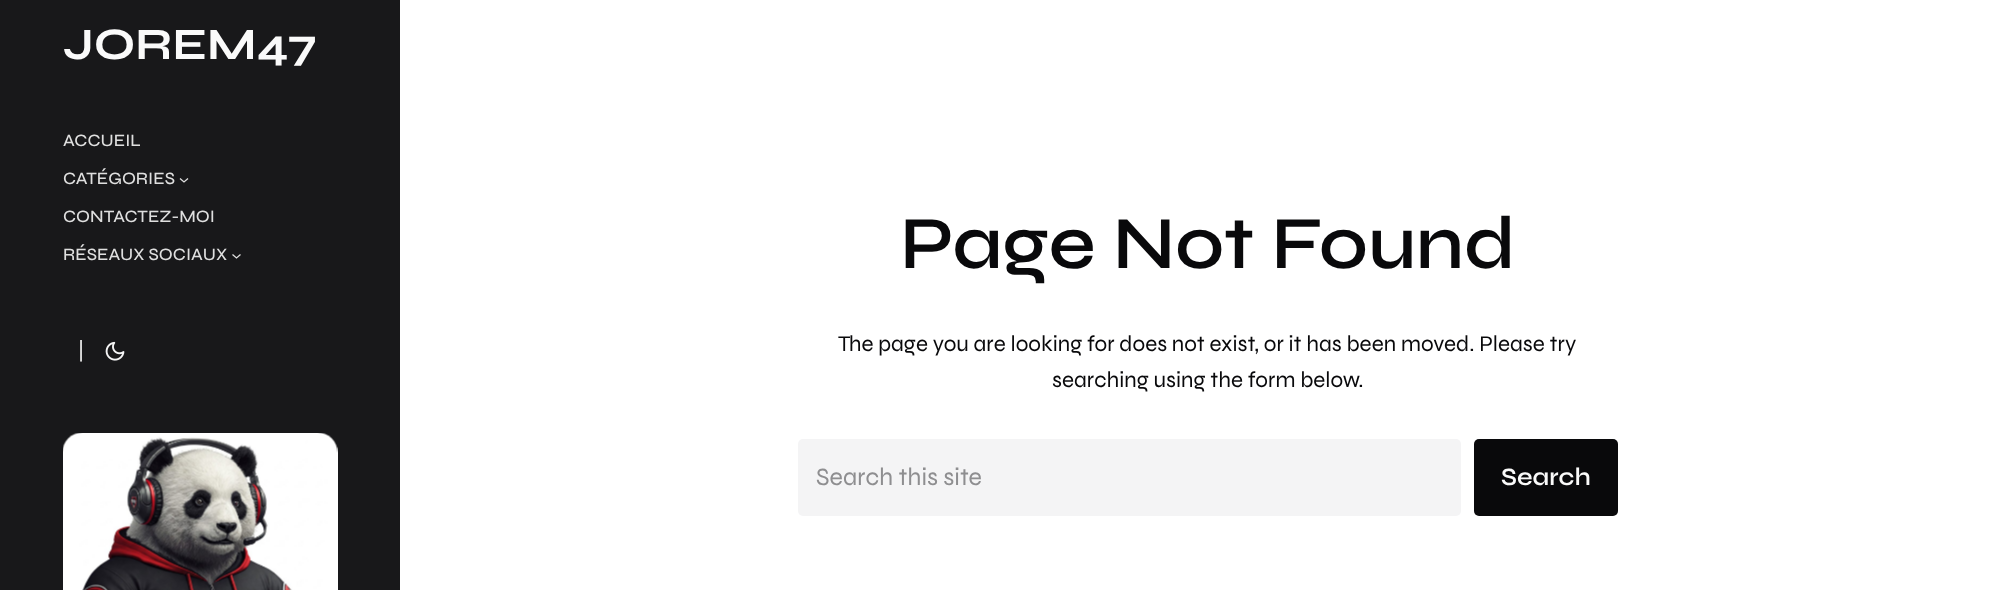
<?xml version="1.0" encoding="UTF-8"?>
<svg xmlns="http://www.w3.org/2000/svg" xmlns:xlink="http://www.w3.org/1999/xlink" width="2015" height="590">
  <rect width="100%" height="100%" fill="#ffffff" />
  <rect width="400" height="590" fill="#18181a" />
  <path d="M 180 178.5 l 4 3.5 l 4 -3.5" fill="none" stroke="#dfdfdf" stroke-width="1.3" />
  <path d="M 232.5 254.5 l 4 3.5 l 4 -3.5" fill="none" stroke="#dfdfdf" stroke-width="1.3" />
  <image x="105" y="341" width="20" height="20" xlink:href="image1.png" />
  <image x="63" y="433" width="275" height="157" xlink:href="image2.png" />
  <rect x="798" y="439" width="663" height="77" rx="5" fill="#f4f4f5" />
  <rect x="1474" y="439" width="144" height="77" rx="5" fill="#09090b" />
  <text x="63" y="59" style="font-family: Syne; font-size: 45px; font-weight: bold; fill: #fafafa">JOREM47</text>
  <text x="63" y="146" style="font-family: Syne; font-size: 17.5px; font-weight: 500; fill: #dfdfdf">ACCUEIL</text>
  <text x="63" y="184" style="font-family: Syne; font-size: 17.5px; font-weight: 500; fill: #dfdfdf">CATÉGORIES</text>
  <text x="63" y="222" style="font-family: Syne; font-size: 17.5px; font-weight: 500; fill: #dfdfdf">CONTACTEZ-MOI</text>
  <text x="63" y="260" style="font-family: Syne; font-size: 17.5px; font-weight: 500; fill: #dfdfdf">RÉSEAUX SOCIAUX</text>
  <text x="78" y="358" style="font-family: Syne; font-size: 22.5px; fill: #fafafa">|</text>
  <text x="900" y="268" style="font-family: Syne; font-size: 75px; font-weight: 600; fill: #09090b">Page Not Found</text>
  <text x="838" y="351" style="font-family: Syne; font-size: 22.5px; fill: #09090b">The page you are looking for does not exist, or it has been moved. Please try</text>
  <text x="1052" y="387" style="font-family: Syne; font-size: 22.5px; fill: #09090b">searching using the form below.</text>
  <text x="816" y="485" style="font-family: Syne; font-size: 25px; fill: #8e8e90">Search this site</text>
  <text x="1501" y="485" style="font-family: Syne; font-size: 25px; font-weight: 600; fill: #fafafa">Search</text>
</svg>
